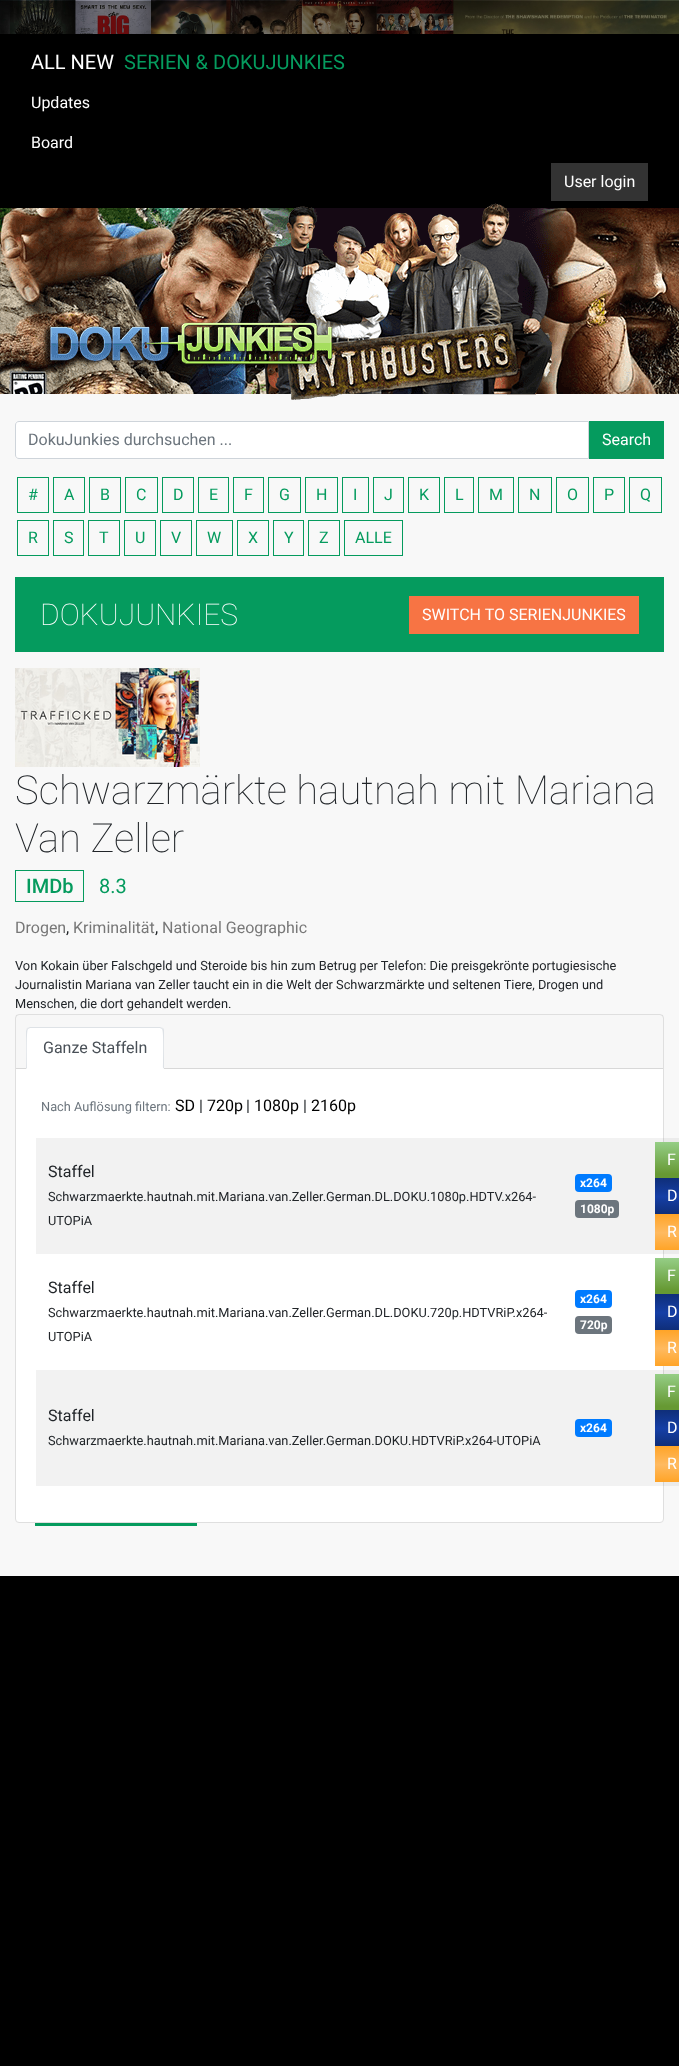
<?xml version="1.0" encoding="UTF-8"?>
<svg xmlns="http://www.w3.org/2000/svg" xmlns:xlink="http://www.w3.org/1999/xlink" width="679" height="2066">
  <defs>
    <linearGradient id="g1" gradientUnits="userSpaceOnUse" x1="672" y1="1142" x2="672" y2="1178"><stop offset="0" stop-color="#95ce86" /><stop offset="0.89" stop-color="#669933" /></linearGradient>
    <linearGradient id="g2" gradientUnits="userSpaceOnUse" x1="678" y1="1178" x2="678" y2="1214"><stop offset="0" stop-color="#0f2e79" /><stop offset="0.52" stop-color="#153fa6" /><stop offset="1" stop-color="#0f2e79" /></linearGradient>
    <linearGradient id="g3" gradientUnits="userSpaceOnUse" x1="678" y1="1214" x2="678" y2="1250"><stop offset="0" stop-color="#ffa427" /><stop offset="0.52" stop-color="#ffba60" /><stop offset="1" stop-color="#ffa427" /></linearGradient>
    <linearGradient id="g4" gradientUnits="userSpaceOnUse" x1="672" y1="1258" x2="672" y2="1294"><stop offset="0" stop-color="#95ce86" /><stop offset="0.89" stop-color="#669933" /></linearGradient>
    <linearGradient id="g5" gradientUnits="userSpaceOnUse" x1="678" y1="1294" x2="678" y2="1330"><stop offset="0" stop-color="#0f2e79" /><stop offset="0.52" stop-color="#153fa6" /><stop offset="1" stop-color="#0f2e79" /></linearGradient>
    <linearGradient id="g6" gradientUnits="userSpaceOnUse" x1="678" y1="1330" x2="678" y2="1366"><stop offset="0" stop-color="#ffa427" /><stop offset="0.52" stop-color="#ffba60" /><stop offset="1" stop-color="#ffa427" /></linearGradient>
    <linearGradient id="g7" gradientUnits="userSpaceOnUse" x1="672" y1="1374" x2="672" y2="1410"><stop offset="0" stop-color="#95ce86" /><stop offset="0.89" stop-color="#669933" /></linearGradient>
    <linearGradient id="g8" gradientUnits="userSpaceOnUse" x1="678" y1="1410" x2="678" y2="1446"><stop offset="0" stop-color="#0f2e79" /><stop offset="0.52" stop-color="#153fa6" /><stop offset="1" stop-color="#0f2e79" /></linearGradient>
    <linearGradient id="g9" gradientUnits="userSpaceOnUse" x1="678" y1="1446" x2="678" y2="1482"><stop offset="0" stop-color="#ffa427" /><stop offset="0.52" stop-color="#ffba60" /><stop offset="1" stop-color="#ffa427" /></linearGradient>
  </defs>
  <rect width="100%" height="100%" fill="#000000" />
  <image x="0" y="0" width="679" height="34" xlink:href="image1.png" />
  <rect y="394" width="679" height="1182" fill="#f8f8f8" />
  <rect x="551" y="163" width="97" height="38" fill="#333333" />
  <image x="0" y="203" width="679" height="197" xlink:href="image2.png" />
  <path d="M 19 421.5 h 569.5 v 37 h -569.5 c -2 0 -3.5 -1.5 -3.5 -3.5 v -30 c 0 -2 1.5 -3.5 3.5 -3.5 z" fill="#ffffff" stroke="#ced4da" />
  <rect x="589" y="421" width="75" height="38" fill="#059b5e" />
  <rect x="17.5" y="477.5" width="31" height="35" fill="none" stroke="#059b5e" />
  <rect x="53.5" y="477.5" width="31" height="35" fill="none" stroke="#059b5e" />
  <rect x="89.5" y="477.5" width="31" height="35" fill="none" stroke="#059b5e" />
  <rect x="125.5" y="477.5" width="32" height="35" fill="none" stroke="#059b5e" />
  <rect x="162.5" y="477.5" width="31" height="35" fill="none" stroke="#059b5e" />
  <rect x="198.5" y="477.5" width="30" height="35" fill="none" stroke="#059b5e" />
  <rect x="233.5" y="477.5" width="30" height="35" fill="none" stroke="#059b5e" />
  <rect x="268.5" y="477.5" width="32" height="35" fill="none" stroke="#059b5e" />
  <rect x="305.5" y="477.5" width="32" height="35" fill="none" stroke="#059b5e" />
  <rect x="342.5" y="477.5" width="26" height="35" fill="none" stroke="#059b5e" />
  <rect x="373.5" y="477.5" width="30" height="35" fill="none" stroke="#059b5e" />
  <rect x="408.5" y="477.5" width="31" height="35" fill="none" stroke="#059b5e" />
  <rect x="444.5" y="477.5" width="29" height="35" fill="none" stroke="#059b5e" />
  <rect x="478.5" y="477.5" width="35" height="35" fill="none" stroke="#059b5e" />
  <rect x="518.5" y="477.5" width="33" height="35" fill="none" stroke="#059b5e" />
  <rect x="556.5" y="477.5" width="32" height="35" fill="none" stroke="#059b5e" />
  <rect x="593.5" y="477.5" width="31" height="35" fill="none" stroke="#059b5e" />
  <rect x="629.5" y="477.5" width="32" height="35" fill="none" stroke="#059b5e" />
  <rect x="17.5" y="520.5" width="31" height="35" fill="none" stroke="#059b5e" />
  <rect x="53.5" y="520.5" width="30" height="35" fill="none" stroke="#059b5e" />
  <rect x="88.5" y="520.5" width="31" height="35" fill="none" stroke="#059b5e" />
  <rect x="124.5" y="520.5" width="31" height="35" fill="none" stroke="#059b5e" />
  <rect x="160.5" y="520.5" width="31" height="35" fill="none" stroke="#059b5e" />
  <rect x="196.5" y="520.5" width="36" height="35" fill="none" stroke="#059b5e" />
  <rect x="237.5" y="520.5" width="31" height="35" fill="none" stroke="#059b5e" />
  <rect x="273.5" y="520.5" width="30" height="35" fill="none" stroke="#059b5e" />
  <rect x="308.5" y="520.5" width="31" height="35" fill="none" stroke="#059b5e" />
  <rect x="344.5" y="520.5" width="58" height="35" fill="none" stroke="#059b5e" />
  <rect x="15" y="577" width="649" height="75" fill="#059b5e" />
  <rect x="409" y="596" width="230" height="38" fill="#f77444" />
  <image x="15" y="668" width="185" height="99" xlink:href="image3.png" />
  <rect x="15.5" y="870.5" width="68" height="31" fill="none" stroke="#059b5e" />
  <rect x="15.5" y="1014.5" width="648" height="508" rx="3.5" fill="#ffffff" stroke="#dfdfdf" />
  <rect x="16" y="1015" width="647" height="53" fill="#000000" fill-opacity="0.03" />
  <rect x="16" y="1068" width="647" height="1" fill="#d8d8d8" />
  <path d="M 30 1027 h 130 c 2 0 4 2 4 4 v 38 h -138 v -38 c 0 -2 2 -4 4 -4 z" fill="#ffffff" />
  <path d="M 30 1027 l -3 1 l 1 1 l 2 -1 h 130 l 2 1 l 1 -1 l -3 -1 z" fill="#dee2e6" />
  <path d="M 164 1069 v -38 c 0 -1 0 -2 -1 -3 l -1 1 c 2 2 1 34 1 39 z" fill="#dee2e6" />
  <path d="M 164 1069 l -1 -1 h -136 l -1 1 z" fill="#ffffff" />
  <path d="M 26 1069 l 1 -1 c 0 -5 -1 -37 1 -39 l -1 -1 l -1 3 z" fill="#dee2e6" />
  <rect x="36" y="1138" width="643" height="116" fill="#000000" fill-opacity="0.05" />
  <rect x="575" y="1174" width="37" height="18" rx="4" fill="#007bff" />
  <rect x="575" y="1200" width="44" height="18" rx="4" fill="#6c757d" />
  <rect x="655" y="1142" width="24" height="36" fill="url(#g1)" />
  <rect x="655" y="1178" width="24" height="36" fill="url(#g2)" />
  <rect x="655" y="1214" width="24" height="36" fill="url(#g3)" />
  <rect x="575" y="1290" width="37" height="18" rx="4" fill="#007bff" />
  <rect x="575" y="1316" width="37" height="18" rx="4" fill="#6c757d" />
  <rect x="655" y="1258" width="24" height="36" fill="url(#g4)" />
  <rect x="655" y="1294" width="24" height="36" fill="url(#g5)" />
  <rect x="655" y="1330" width="24" height="36" fill="url(#g6)" />
  <rect x="36" y="1370" width="643" height="116" fill="#000000" fill-opacity="0.05" />
  <rect x="575" y="1419" width="37" height="18" rx="4" fill="#007bff" />
  <rect x="655" y="1374" width="24" height="36" fill="url(#g7)" />
  <rect x="655" y="1410" width="24" height="36" fill="url(#g8)" />
  <rect x="655" y="1446" width="24" height="36" fill="url(#g9)" />
  <rect x="35" y="1523" width="162" height="3" fill="#059b5e" />
  <text x="31" y="69" style="font-family: Roboto; font-size: 20px; fill: #ffffff">ALL NEW</text>
  <text x="124" y="69" style="font-family: Roboto; font-size: 20px; fill: #059b5e">SERIEN &amp; DOKUJUNKIES</text>
  <text x="31" y="108" style="font-family: Roboto; font-size: 16px; fill: #ffffff">Updates</text>
  <text x="31" y="148" style="font-family: Roboto; font-size: 16px; fill: #ffffff">Board</text>
  <text x="564" y="187" style="font-family: Roboto; font-size: 16px; fill: #ffffff">User login</text>
  <text x="28" y="445" style="font-family: Roboto; font-size: 16px; fill: #6c757d">DokuJunkies durchsuchen ...</text>
  <text x="602" y="445" style="font-family: Roboto; font-size: 16px; fill: #ffffff">Search</text>
  <text x="28" y="500" style="font-family: Roboto; font-size: 16px; fill: #059b5e">#</text>
  <text x="64" y="500" style="font-family: Roboto; font-size: 16px; fill: #059b5e">A</text>
  <text x="100" y="500" style="font-family: Roboto; font-size: 16px; fill: #059b5e">B</text>
  <text x="136" y="500" style="font-family: Roboto; font-size: 16px; fill: #059b5e">C</text>
  <text x="173" y="500" style="font-family: Roboto; font-size: 16px; fill: #059b5e">D</text>
  <text x="209" y="500" style="font-family: Roboto; font-size: 16px; fill: #059b5e">E</text>
  <text x="244" y="500" style="font-family: Roboto; font-size: 16px; fill: #059b5e">F</text>
  <text x="279" y="500" style="font-family: Roboto; font-size: 16px; fill: #059b5e">G</text>
  <text x="316" y="500" style="font-family: Roboto; font-size: 16px; fill: #059b5e">H</text>
  <text x="353" y="500" style="font-family: Roboto; font-size: 16px; fill: #059b5e">I</text>
  <text x="384" y="500" style="font-family: Roboto; font-size: 16px; fill: #059b5e">J</text>
  <text x="419" y="500" style="font-family: Roboto; font-size: 16px; fill: #059b5e">K</text>
  <text x="455" y="500" style="font-family: Roboto; font-size: 16px; fill: #059b5e">L</text>
  <text x="489" y="500" style="font-family: Roboto; font-size: 16px; fill: #059b5e">M</text>
  <text x="529" y="500" style="font-family: Roboto; font-size: 16px; fill: #059b5e">N</text>
  <text x="567" y="500" style="font-family: Roboto; font-size: 16px; fill: #059b5e">O</text>
  <text x="604" y="500" style="font-family: Roboto; font-size: 16px; fill: #059b5e">P</text>
  <text x="640" y="500" style="font-family: Roboto; font-size: 16px; fill: #059b5e">Q</text>
  <text x="28" y="543" style="font-family: Roboto; font-size: 16px; fill: #059b5e">R</text>
  <text x="64" y="543" style="font-family: Roboto; font-size: 16px; fill: #059b5e">S</text>
  <text x="99" y="543" style="font-family: Roboto; font-size: 16px; fill: #059b5e">T</text>
  <text x="135" y="543" style="font-family: Roboto; font-size: 16px; fill: #059b5e">U</text>
  <text x="171" y="543" style="font-family: Roboto; font-size: 16px; fill: #059b5e">V</text>
  <text x="207" y="543" style="font-family: Roboto; font-size: 16px; fill: #059b5e">W</text>
  <text x="248" y="543" style="font-family: Roboto; font-size: 16px; fill: #059b5e">X</text>
  <text x="284" y="543" style="font-family: Roboto; font-size: 16px; fill: #059b5e">Y</text>
  <text x="319" y="543" style="font-family: Roboto; font-size: 16px; fill: #059b5e">Z</text>
  <text x="355" y="543" style="font-family: Roboto; font-size: 16px; fill: #059b5e">ALLE</text>
  <text x="40" y="625" style="font-family: Roboto; font-size: 30px; font-weight: 100; fill: #ffffff">DOKUJUNKIES</text>
  <text x="422" y="620" style="font-family: Roboto; font-size: 16px; fill: #ffffff">SWITCH TO SERIENJUNKIES</text>
  <text x="15" y="804" style="font-family: Roboto; font-size: 40px; font-weight: 100; fill: #212529">Schwarzmärkte hautnah mit Mariana</text>
  <text x="15" y="852" style="font-family: Roboto; font-size: 40px; font-weight: 100; fill: #212529">Van Zeller</text>
  <text x="26" y="893" style="font-family: Roboto; font-size: 20px; font-weight: 500; fill: #059b5e">IMDb</text>
  <text x="99" y="893" style="font-family: Roboto; font-size: 20px; fill: #059b5e">8.3</text>
  <text x="15" y="933" style="font-family: Roboto; font-size: 16px; fill: #777777">Drogen</text>
  <text x="66" y="933" style="font-family: Roboto; font-size: 16px; fill: #212529">,</text>
  <text x="73" y="933" style="font-family: Roboto; font-size: 16px; fill: #777777">Kriminalität</text>
  <text x="155" y="933" style="font-family: Roboto; font-size: 16px; fill: #212529">,</text>
  <text x="162" y="933" style="font-family: Roboto; font-size: 16px; fill: #777777">National Geographic</text>
  <text x="15" y="970" style="font-family: Roboto; font-size: 12.8px; fill: #212529">Von Kokain über Falschgeld und Steroide bis hin zum Betrug per Telefon: Die preisgekrönte portugiesische</text>
  <text x="15" y="989" style="font-family: Roboto; font-size: 12.8px; fill: #212529">Journalistin Mariana van Zeller taucht ein in die Welt der Schwarzmärkte und seltenen Tiere, Drogen und</text>
  <text x="15" y="1008" style="font-family: Roboto; font-size: 12.8px; fill: #212529">Menschen, die dort gehandelt werden.</text>
  <text x="43" y="1053" style="font-family: Roboto; font-size: 16px; fill: #495057">Ganze Staffeln</text>
  <text x="41" y="1111" style="font-family: Roboto; font-size: 12.8px; fill: #6c757d">Nach Auflösung filtern:</text>
  <text x="175" y="1111" style="font-family: Roboto; font-size: 16px; fill: #000000">SD</text>
  <text x="199" y="1111" style="font-family: Roboto; font-size: 16px; fill: #212529">|</text>
  <text x="207" y="1111" style="font-family: Roboto; font-size: 16px; fill: #000000">720p</text>
  <text x="246" y="1111" style="font-family: Roboto; font-size: 16px; fill: #212529">|</text>
  <text x="254" y="1111" style="font-family: Roboto; font-size: 16px; fill: #000000">1080p</text>
  <text x="303" y="1111" style="font-family: Roboto; font-size: 16px; fill: #212529">|</text>
  <text x="311" y="1111" style="font-family: Roboto; font-size: 16px; fill: #000000">2160p</text>
  <text x="48" y="1177" style="font-family: Roboto; font-size: 16px; fill: #212529">Staffel</text>
  <text x="48" y="1201" style="font-family: Roboto; font-size: 12.8px; fill: #212529">Schwarzmaerkte.hautnah.mit.Mariana.van.Zeller.German.DL.DOKU.1080p.HDTV.x264-</text>
  <text x="48" y="1225" style="font-family: Roboto; font-size: 12.8px; fill: #212529">UTOPiA</text>
  <text x="580" y="1187" style="font-family: Roboto; font-size: 12px; font-weight: bold; fill: #ffffff">x264</text>
  <text x="580" y="1213" style="font-family: Roboto; font-size: 12px; font-weight: bold; fill: #ffffff">1080p</text>
  <text x="667" y="1165" style="font-family: Roboto; font-size: 16px; fill: #ffffff">F</text>
  <text x="667" y="1201" style="font-family: Roboto; font-size: 16px; fill: #ffffff">D</text>
  <text x="667" y="1237" style="font-family: Roboto; font-size: 16px; fill: #ffffff">R</text>
  <text x="48" y="1293" style="font-family: Roboto; font-size: 16px; fill: #212529">Staffel</text>
  <text x="48" y="1317" style="font-family: Roboto; font-size: 12.8px; fill: #212529">Schwarzmaerkte.hautnah.mit.Mariana.van.Zeller.German.DL.DOKU.720p.HDTVRiP.x264-</text>
  <text x="48" y="1341" style="font-family: Roboto; font-size: 12.8px; fill: #212529">UTOPiA</text>
  <text x="580" y="1303" style="font-family: Roboto; font-size: 12px; font-weight: bold; fill: #ffffff">x264</text>
  <text x="580" y="1329" style="font-family: Roboto; font-size: 12px; font-weight: bold; fill: #ffffff">720p</text>
  <text x="667" y="1281" style="font-family: Roboto; font-size: 16px; fill: #ffffff">F</text>
  <text x="667" y="1317" style="font-family: Roboto; font-size: 16px; fill: #ffffff">D</text>
  <text x="667" y="1353" style="font-family: Roboto; font-size: 16px; fill: #ffffff">R</text>
  <text x="48" y="1421" style="font-family: Roboto; font-size: 16px; fill: #212529">Staffel</text>
  <text x="48" y="1445" style="font-family: Roboto; font-size: 12.8px; fill: #212529">Schwarzmaerkte.hautnah.mit.Mariana.van.Zeller.German.DOKU.HDTVRiP.x264-UTOPiA</text>
  <text x="580" y="1432" style="font-family: Roboto; font-size: 12px; font-weight: bold; fill: #ffffff">x264</text>
  <text x="667" y="1397" style="font-family: Roboto; font-size: 16px; fill: #ffffff">F</text>
  <text x="667" y="1433" style="font-family: Roboto; font-size: 16px; fill: #ffffff">D</text>
  <text x="667" y="1469" style="font-family: Roboto; font-size: 16px; fill: #ffffff">R</text>
</svg>
